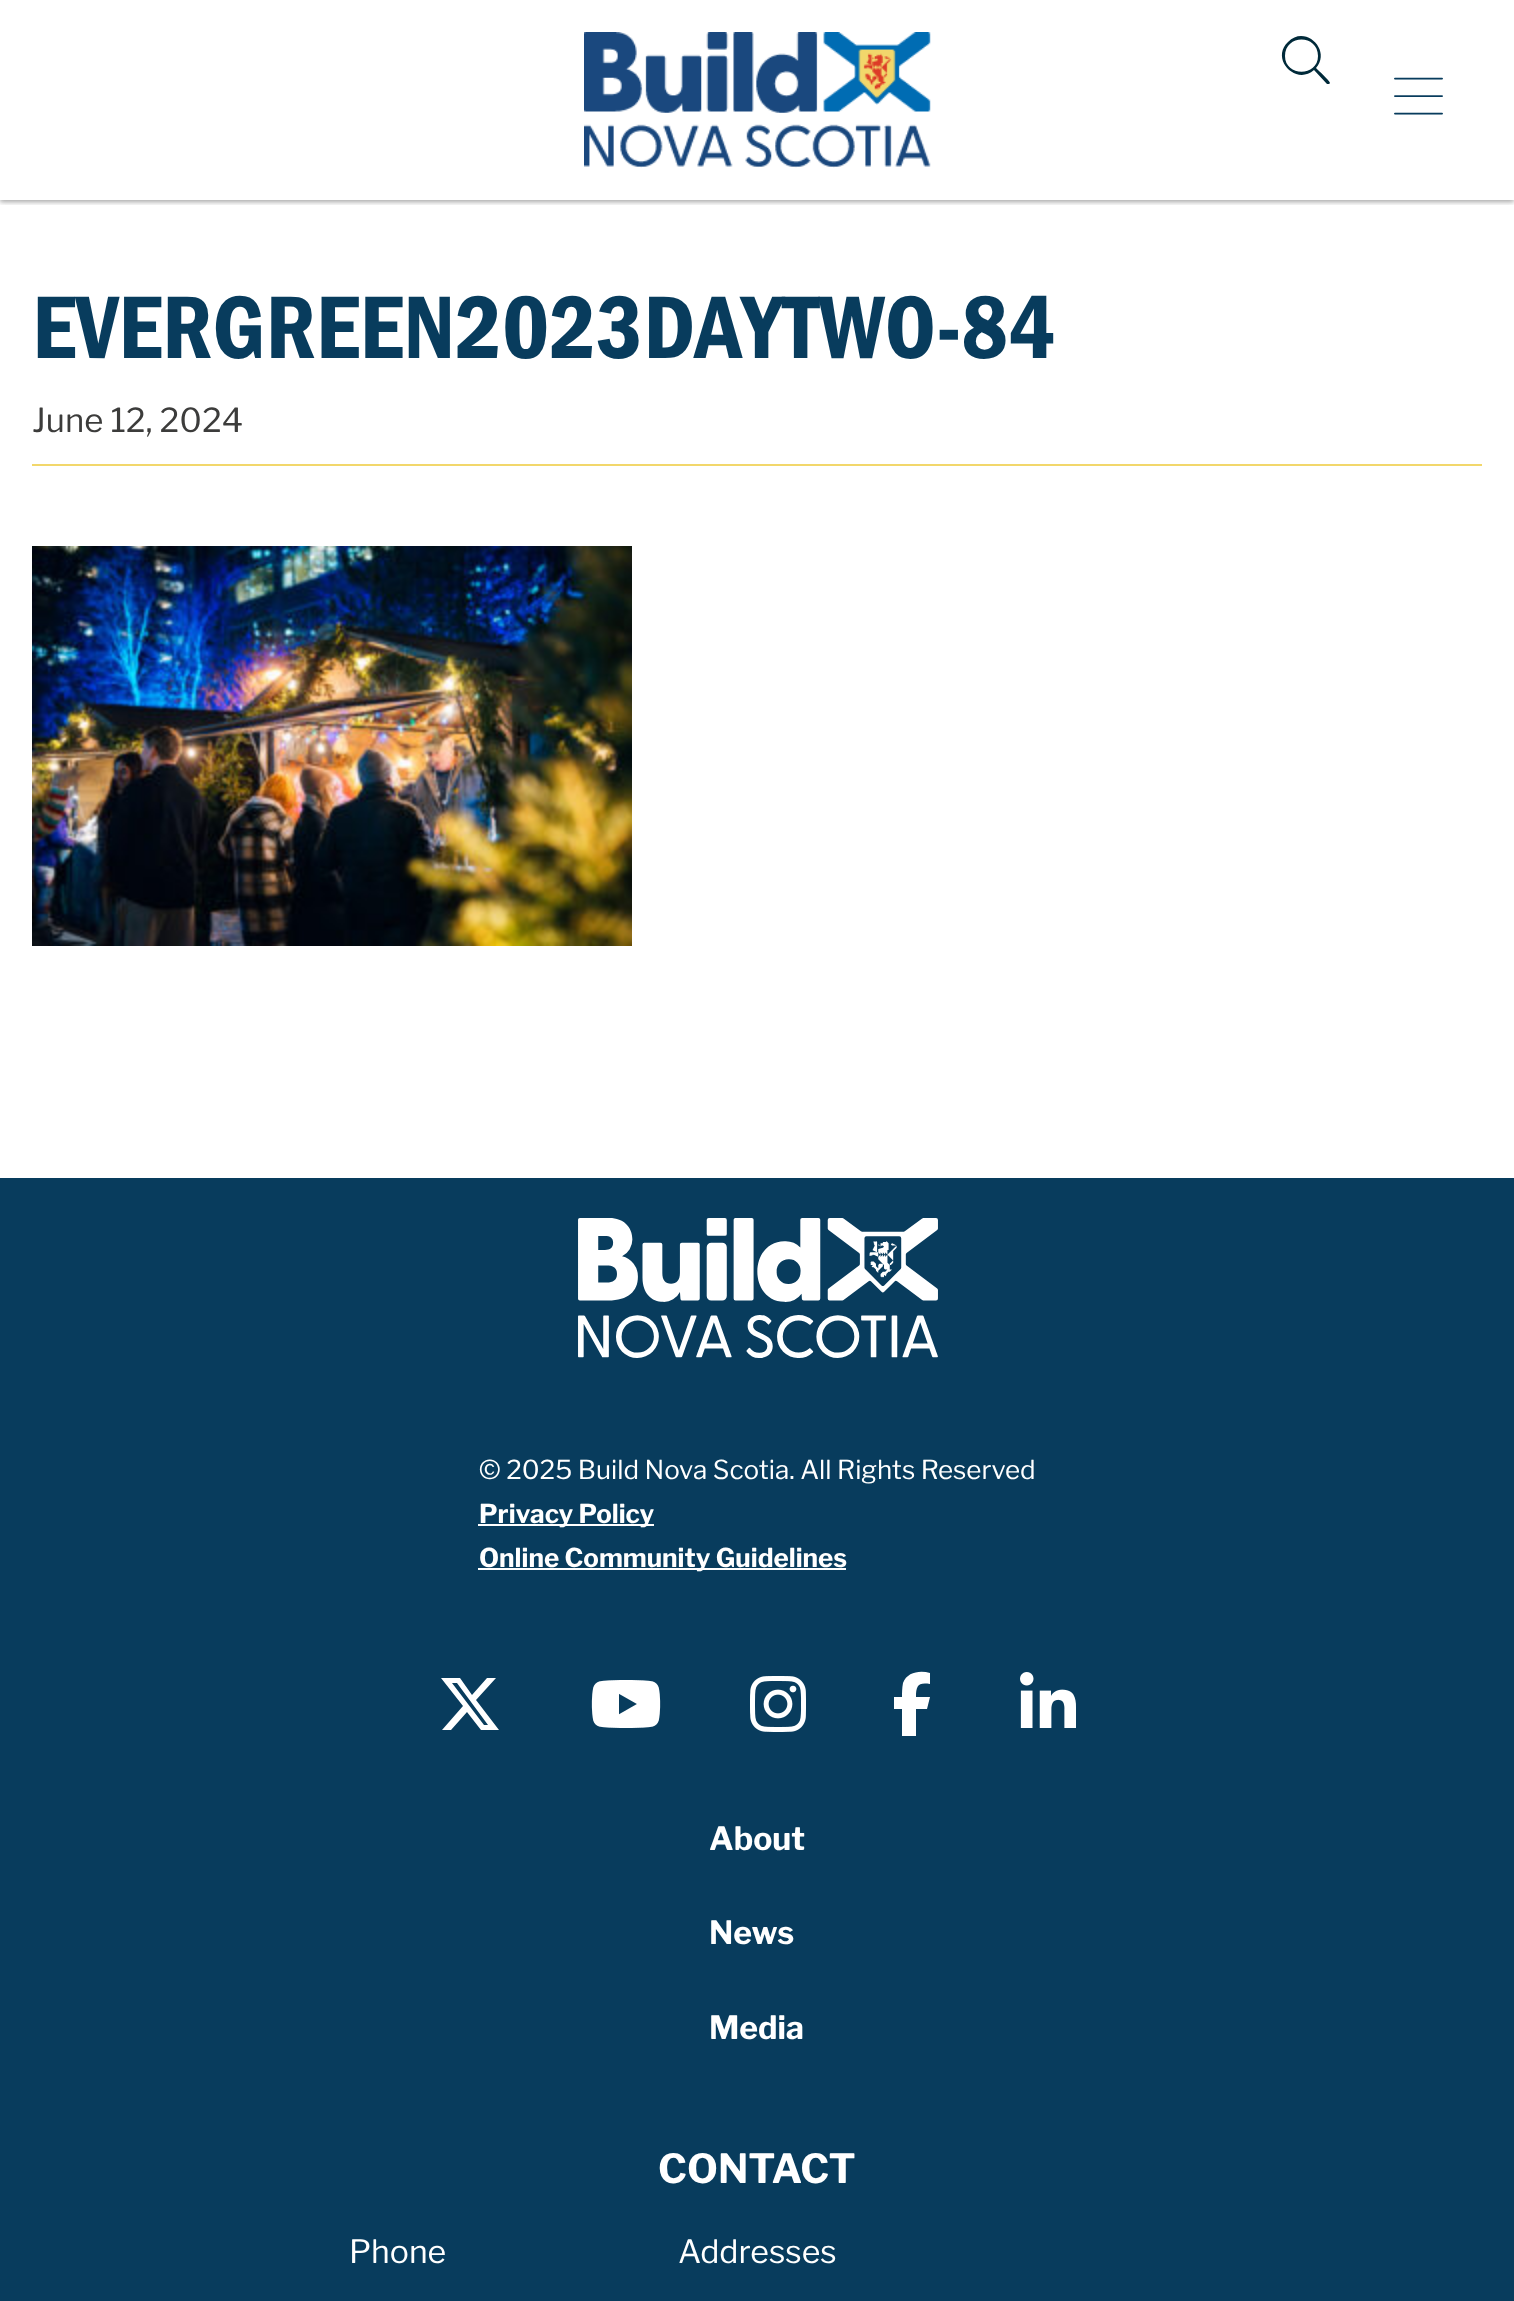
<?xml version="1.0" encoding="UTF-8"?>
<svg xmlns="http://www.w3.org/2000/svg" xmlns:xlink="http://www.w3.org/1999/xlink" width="1514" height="2301">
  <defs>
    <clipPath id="clip1"><rect x="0" y="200" width="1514" height="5" /></clipPath>
  </defs>
  <rect width="100%" height="100%" fill="#ffffff" />
  <g clip-path="url(#clip1)">
    <rect y="2" width="1514" height="200" fill="#000000" fill-opacity="0.24" filter="blur(2px)" />
    <rect y="2" width="1514" height="200" fill="#000000" fill-opacity="0.12" filter="blur(3px)" />
  </g>
  <image x="584" y="32" width="347" height="136" xlink:href="image1.png" />
  <path d="M 1318 56 c 0 -22 -33 -22 -33 0 c 0 21 33 21 33 0 z m -4 14 c -18 16 -44 -11 -26 -28 c 17 -18 44 8 28 26 c 2 2 14 13 14 15 c 0 1 -2 1 -3 1 z" fill="#002a3a" />
  <image x="1394" y="77" width="49" height="38" xlink:href="image2.png" />
  <rect x="32" y="464" width="1450" height="2" fill="#f2d76b" />
  <image x="32" y="546" width="600" height="400" xlink:href="image3.png" />
  <rect y="1178" width="1514" height="1123" fill="#083c5d" />
  <image x="578" y="1218" width="360" height="140" xlink:href="image4.png" />
  <rect x="478" y="1524" width="176" height="2" fill="#ffffff" />
  <rect x="478" y="1568" width="368" height="2" fill="#ffffff" />
  <path d="M 487 1678 h 9 h -9 h 9 l -20 22 l 23 30 h -18 l -14 -18 l -16 18 h -9 l 21 -24 l -22 -28 h 19 l 12 17 z m -3 47 h 4 h -4 h 4 l -31 -42 h -5 z" fill="#ffffff" />
  <image x="591" y="1680" width="70" height="48" xlink:href="image5.png" />
  <image x="750" y="1676" width="56" height="56" xlink:href="image6.png" />
  <path d="M 902 1709 v 27 v -27 v 27 h 14 v -27 h 11 l 3 -12 h -14 c 0 -11 2 -15 14 -13 v -11 c -10 -3 -23 -1 -27 10 c -1 5 -1 10 -1 14 h -8 v 12 z" fill="#ffffff" />
  <image x="1020" y="1672" width="56" height="56" xlink:href="image7.png" />
  <text x="32" y="358" style="font-family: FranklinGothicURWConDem; font-size: 92px; fill: #083c5d">EVERGREEN2023DAYTWO-84</text>
  <text x="32" y="432" style="font-family: Libre Franklin; font-size: 33px; fill: #3c3c3b">June 12, 2024</text>
  <text x="479" y="1479" style="font-family: Libre Franklin; font-size: 26px; fill: #ffffff">© 2025 Build Nova Scotia. All Rights Reserved</text>
  <text x="479" y="1523" style="font-family: Libre Franklin; font-size: 26px; font-weight: bold; fill: #ffffff">Privacy Policy</text>
  <text x="479" y="1567" style="font-family: Libre Franklin; font-size: 26px; font-weight: bold; fill: #ffffff">Online Community Guidelines</text>
  <text x="709" y="1850" style="font-family: Libre Franklin; font-size: 32px; font-weight: bold; fill: #ffffff">About</text>
  <text x="709" y="1944" style="font-family: Libre Franklin; font-size: 32px; font-weight: bold; fill: #ffffff">News</text>
  <text x="709" y="2039" style="font-family: Libre Franklin; font-size: 32px; font-weight: bold; fill: #ffffff">Media</text>
  <text x="658" y="2183" style="font-family: Libre Franklin; font-size: 40px; font-weight: bold; fill: #ffffff">CONTACT</text>
  <text x="349" y="2263" style="font-family: Libre Franklin; font-size: 32px; fill: #ffffff">Phone</text>
  <text x="678" y="2263" style="font-family: Libre Franklin; font-size: 32px; fill: #ffffff">Addresses</text>
</svg>
